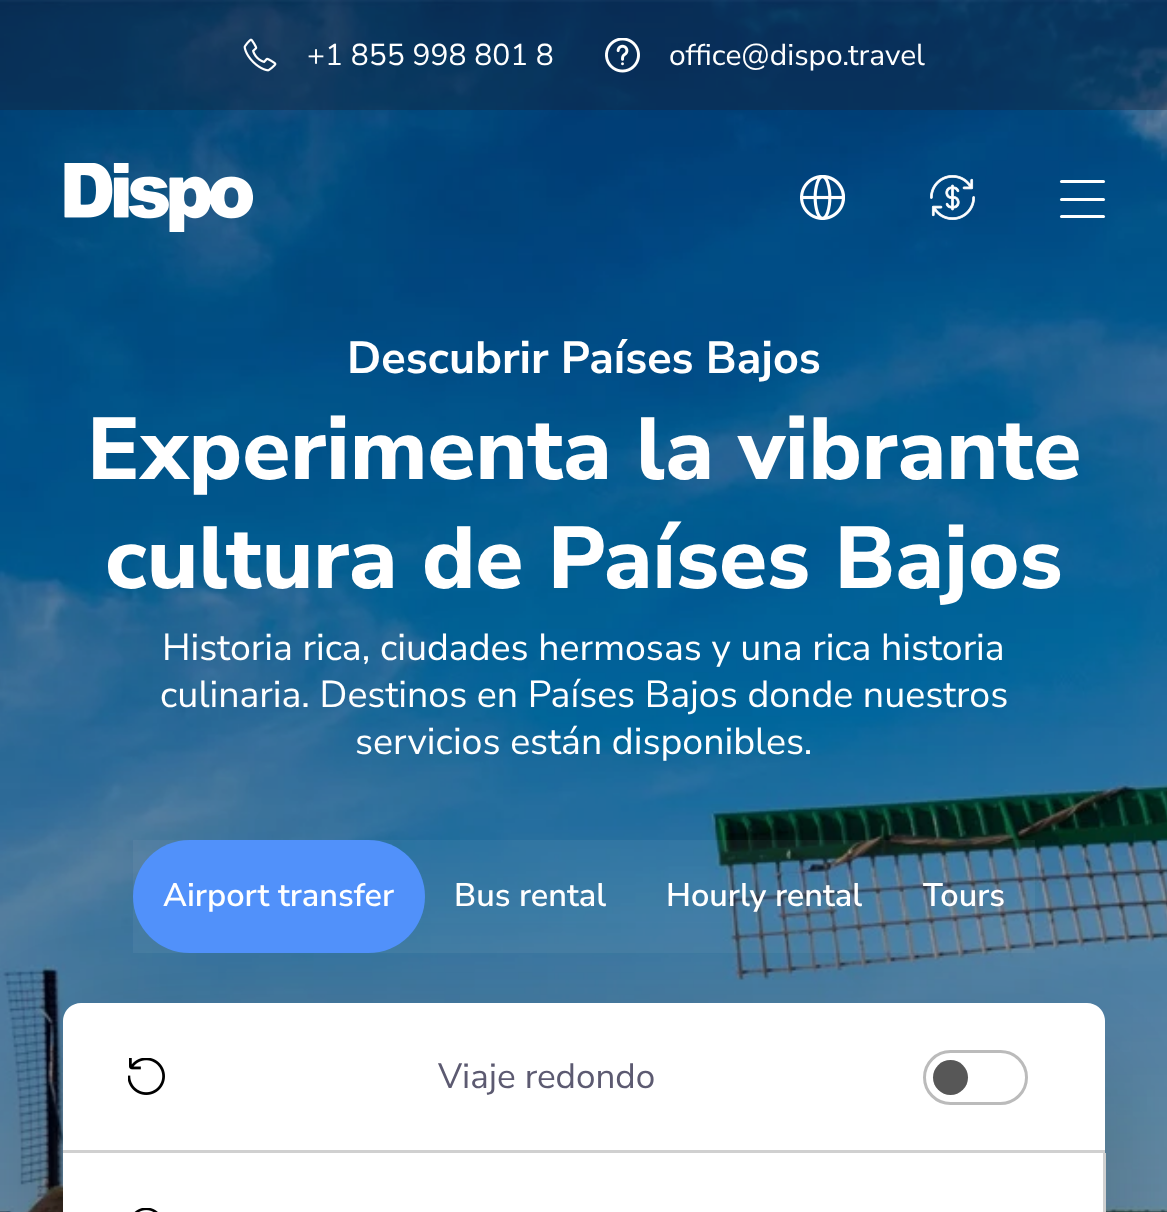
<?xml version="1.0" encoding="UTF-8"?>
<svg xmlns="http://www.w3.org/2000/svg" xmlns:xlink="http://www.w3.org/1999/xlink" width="1167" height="1212">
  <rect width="100%" height="100%" fill="#ffffff" />
  <image x="0" y="0" width="1167" height="1212" xlink:href="image6.png" />
  <rect width="1167" height="110" fill="#161a2c" fill-opacity="0.35" />
  <image x="243" y="38" width="34" height="34" xlink:href="image1.png" />
  <image x="605" y="38" width="35" height="35" xlink:href="image2.png" />
  <image x="64" y="163" width="189" height="69" xlink:href="image3.png" />
  <image x="800" y="175" width="45" height="45" xlink:href="image4.png" />
  <image x="930" y="175" width="45" height="45" xlink:href="image5.png" />
  <rect x="1060" y="180" width="45" height="3" rx="1.5" fill="#ffffff" />
  <rect x="1060" y="198" width="45" height="3" rx="1.5" fill="#ffffff" />
  <rect x="1060" y="215" width="45" height="3" rx="1.5" fill="#ffffff" />
  <rect x="63" y="1053" width="1042" height="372" rx="25" fill="#000000" fill-opacity="0.2" filter="blur(62.5px)" />
  <rect x="133" y="840" width="902" height="113" fill="#ffffff" fill-opacity="0.05" />
  <rect x="133" y="840" width="292" height="113" rx="56.5" fill="#5191fa" />
  <path d="M 81 1003 h 1006 c 10 0 18 8 18 18 v 132 h -1042 v -132 c 0 -10 8 -18 18 -18 z" fill="#ffffff" />
  <image x="128" y="1058" width="37" height="37" xlink:href="image7.png" />
  <rect x="63" y="1150" width="1042" height="3" fill="#d0d0d0" />
  <rect x="924.5" y="1051.5" width="102" height="52" rx="26" fill="none" stroke="#bbbbbb" stroke-width="3" />
  <circle cx="950.5" cy="1077.5" r="17.5" fill="#575757" />
  <rect x="63" y="1153" width="1040" height="59" fill="#ffffff" />
  <image x="134" y="1208" width="24" height="4" xlink:href="image8.png" />
  <rect x="1103" y="1153" width="3" height="59" fill="#d0d0d0" />
  <text x="307" y="65" style="font-family: Nunito Sans; font-size: 30px; fill: #ffffff">+1 855 998 801 8</text>
  <text x="669" y="65" style="font-family: Nunito Sans; font-size: 30px; fill: #ffffff">office@dispo.travel</text>
  <text x="347" y="373" style="font-family: Nunito Sans; font-size: 45px; font-weight: bold; fill: #ffffff">Descubrir Países Bajos</text>
  <text x="87" y="479" style="font-family: Nunito Sans; font-size: 87.5px; font-weight: 800; fill: #ffffff">Experimenta la vibrante</text>
  <text x="105" y="588" style="font-family: Nunito Sans; font-size: 87.5px; font-weight: 800; fill: #ffffff">cultura de Países Bajos</text>
  <text x="162" y="660" style="font-family: Nunito Sans; font-size: 37.5px; fill: #ffffff">Historia rica, ciudades hermosas y una rica historia</text>
  <text x="160" y="707" style="font-family: Nunito Sans; font-size: 37.5px; fill: #ffffff">culinaria. Destinos en Países Bajos donde nuestros</text>
  <text x="355" y="754" style="font-family: Nunito Sans; font-size: 37.5px; fill: #ffffff">servicios están disponibles.</text>
  <text x="163" y="906" style="font-family: Nunito Sans; font-size: 32.5px; font-weight: 600; fill: #ffffff">Airport transfer</text>
  <text x="454" y="906" style="font-family: Nunito Sans; font-size: 32.5px; font-weight: 600; fill: #ffffff">Bus rental</text>
  <text x="666" y="906" style="font-family: Nunito Sans; font-size: 32.5px; font-weight: 600; fill: #ffffff">Hourly rental</text>
  <text x="923" y="906" style="font-family: Nunito Sans; font-size: 32.5px; font-weight: 600; fill: #ffffff">Tours</text>
  <text x="438" y="1088" style="font-family: Nunito Sans; font-size: 35px; fill: #5c5a71">Viaje redondo</text>
</svg>
